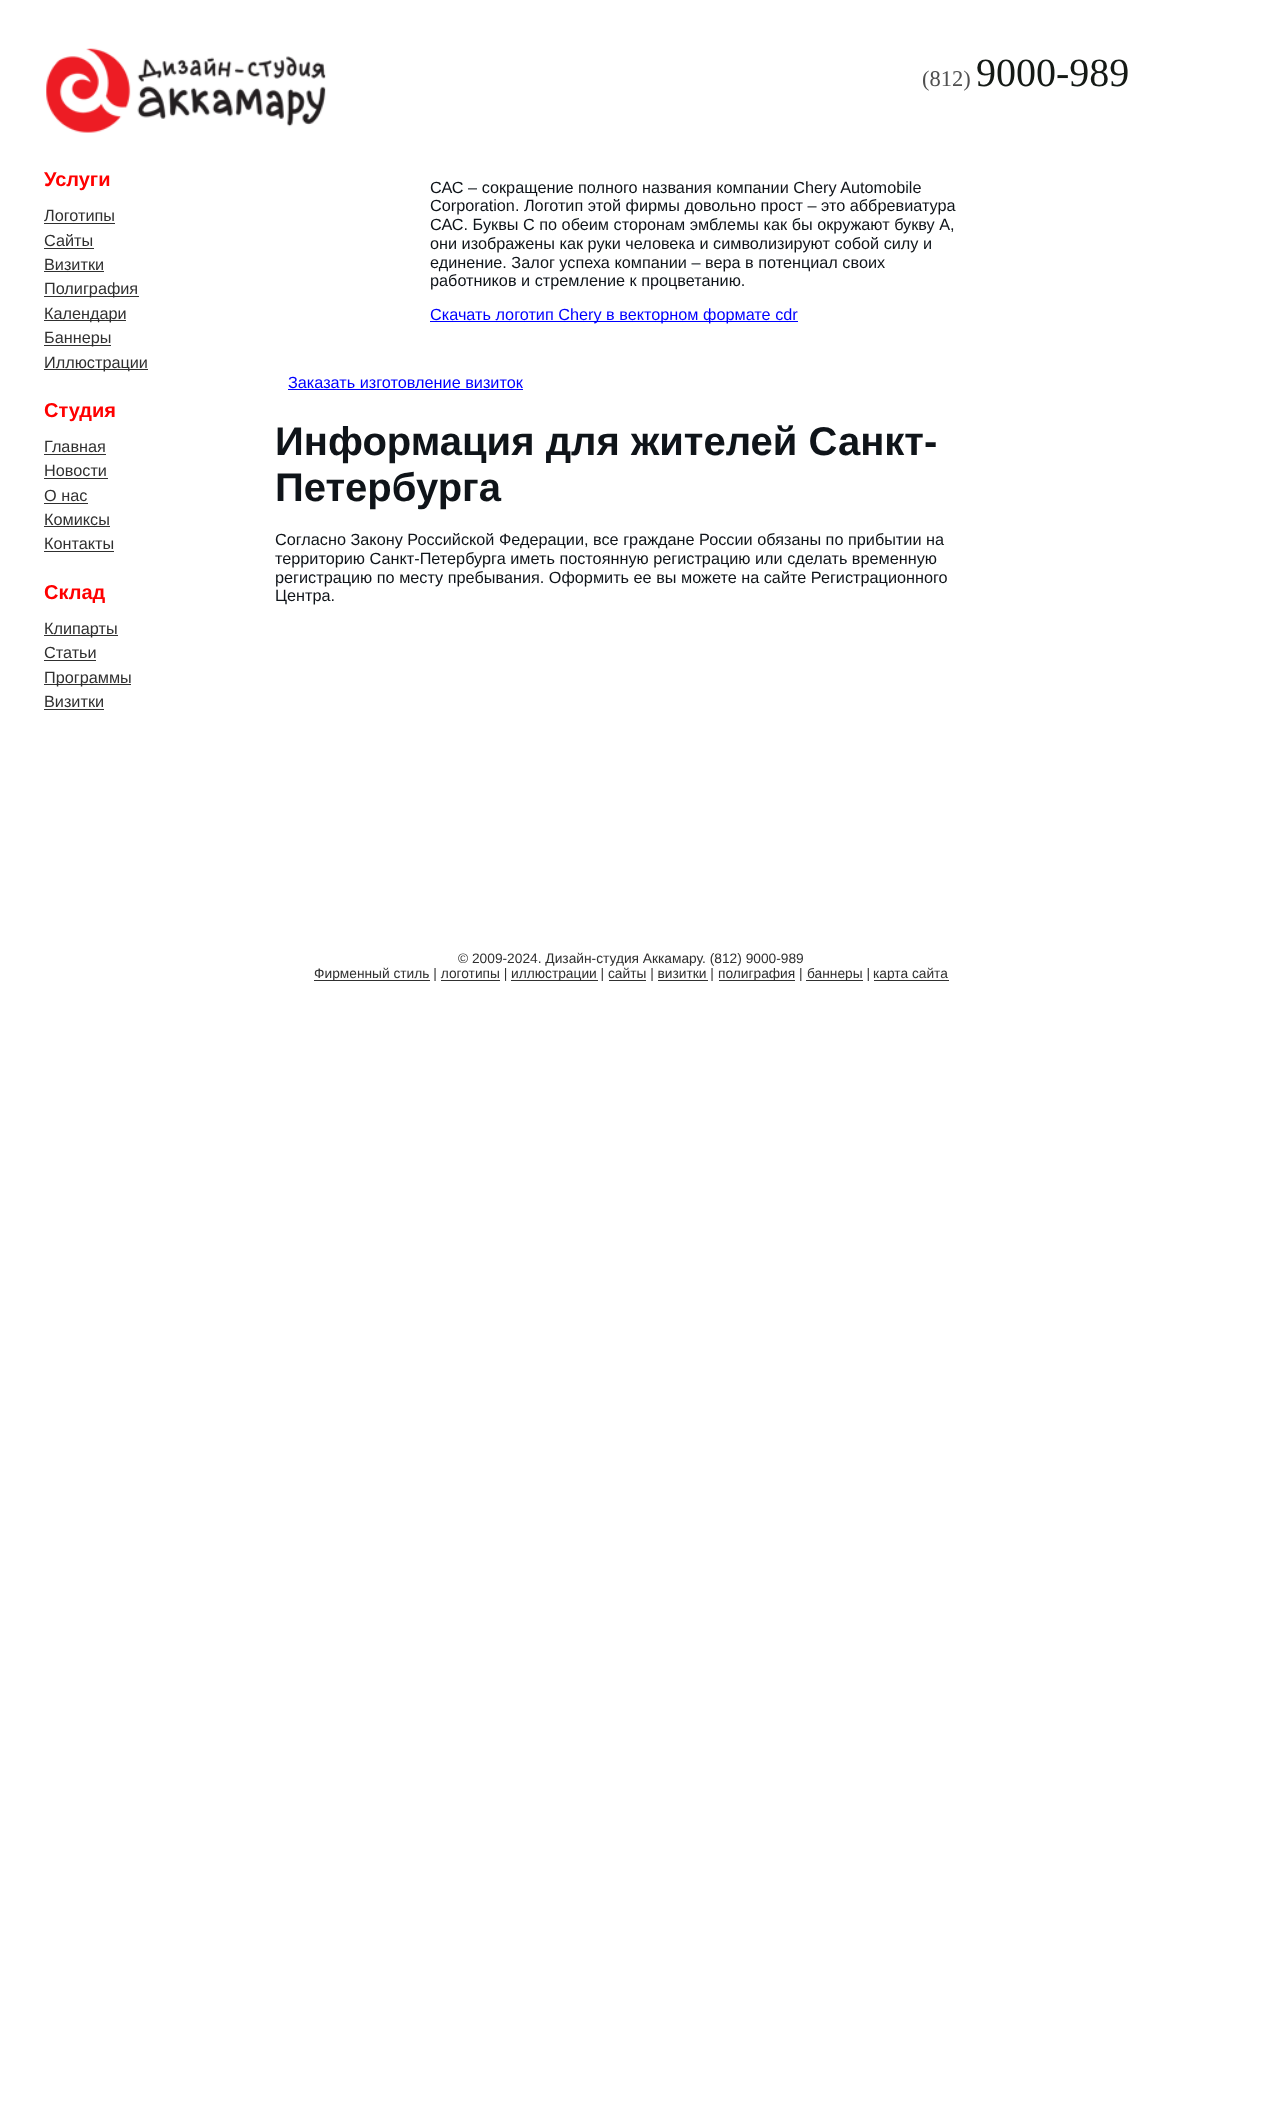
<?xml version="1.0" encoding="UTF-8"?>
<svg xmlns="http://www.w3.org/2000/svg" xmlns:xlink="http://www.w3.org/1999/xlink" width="1262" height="2114">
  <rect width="100%" height="100%" fill="#ffffff" />
  <image x="46" y="48" width="280" height="85" xlink:href="image1.png" />
  <rect x="44" y="223" width="71" height="1" fill="#303030" />
  <rect x="44" y="248" width="50" height="1" fill="#303030" />
  <rect x="44" y="271" width="60" height="1" fill="#303030" />
  <rect x="44" y="296" width="95" height="1" fill="#303030" />
  <rect x="44" y="320" width="82" height="1" fill="#303030" />
  <rect x="44" y="345" width="67" height="1" fill="#303030" />
  <rect x="44" y="369" width="104" height="1" fill="#303030" />
  <rect x="44" y="454" width="62" height="1" fill="#303030" />
  <rect x="44" y="478" width="64" height="1" fill="#303030" />
  <rect x="44" y="503" width="44" height="1" fill="#303030" />
  <rect x="44" y="526" width="66" height="1" fill="#303030" />
  <rect x="44" y="551" width="70" height="1" fill="#303030" />
  <rect x="44" y="635" width="74" height="1" fill="#303030" />
  <rect x="44" y="660" width="52" height="1" fill="#303030" />
  <rect x="44" y="684" width="87" height="1" fill="#303030" />
  <rect x="44" y="709" width="60" height="1" fill="#303030" />
  <rect x="430" y="321" width="368" height="1" fill="#0000ff" />
  <rect x="288" y="389" width="235" height="1" fill="#0000ff" />
  <rect x="314" y="980" width="116" height="1" fill="#303030" />
  <rect x="511" y="980" width="87" height="1" fill="#303030" />
  <rect x="719" y="980" width="76" height="1" fill="#303030" />
  <rect x="806" y="980" width="57" height="1" fill="#303030" />
  <rect x="874" y="980" width="75" height="1" fill="#303030" />
  <rect x="441" y="980" width="59" height="1" fill="#303030" />
  <rect x="609" y="980" width="37" height="1" fill="#303030" />
  <rect x="658" y="980" width="50" height="1" fill="#303030" />
  <text x="922" y="86" style="font-family: Liberation Serif; font-size: 22.5px; fill: #505050">(812)</text>
  <text x="976" y="86" style="font-family: Liberation Serif; font-size: 40px; fill: #151a16">9000-989</text>
  <text x="44" y="186" style="font-family: Liberation Sans; font-size: 20px; font-weight: bold; fill: #ff0000">Услуги</text>
  <text x="44" y="221" style="font-family: Liberation Sans; font-size: 16.25px; fill: #303030">Логотипы</text>
  <text x="44" y="246" style="font-family: Liberation Sans; font-size: 16.25px; fill: #303030">Сайты</text>
  <text x="44" y="270" style="font-family: Liberation Sans; font-size: 16.25px; fill: #303030">Визитки</text>
  <text x="44" y="294" style="font-family: Liberation Sans; font-size: 16.25px; fill: #303030">Полиграфия</text>
  <text x="44" y="319" style="font-family: Liberation Sans; font-size: 16.25px; fill: #303030">Календари</text>
  <text x="44" y="343" style="font-family: Liberation Sans; font-size: 16.25px; fill: #303030">Баннеры</text>
  <text x="44" y="368" style="font-family: Liberation Sans; font-size: 16.25px; fill: #303030">Иллюстрации</text>
  <text x="44" y="417" style="font-family: Liberation Sans; font-size: 20px; font-weight: bold; fill: #ff0000">Студия</text>
  <text x="44" y="452" style="font-family: Liberation Sans; font-size: 16.25px; fill: #303030">Главная</text>
  <text x="44" y="476" style="font-family: Liberation Sans; font-size: 16.25px; fill: #303030">Новости</text>
  <text x="44" y="501" style="font-family: Liberation Sans; font-size: 16.25px; fill: #303030">О нас</text>
  <text x="44" y="525" style="font-family: Liberation Sans; font-size: 16.25px; fill: #303030">Комиксы</text>
  <text x="44" y="549" style="font-family: Liberation Sans; font-size: 16.25px; fill: #303030">Контакты</text>
  <text x="44" y="599" style="font-family: Liberation Sans; font-size: 20px; font-weight: bold; fill: #ff0000">Склад</text>
  <text x="44" y="634" style="font-family: Liberation Sans; font-size: 16.25px; fill: #303030">Клипарты</text>
  <text x="44" y="658" style="font-family: Liberation Sans; font-size: 16.25px; fill: #303030">Статьи</text>
  <text x="44" y="683" style="font-family: Liberation Sans; font-size: 16.25px; fill: #303030">Программы</text>
  <text x="44" y="707" style="font-family: Liberation Sans; font-size: 16.25px; fill: #303030">Визитки</text>
  <text x="430" y="193" style="font-family: Liberation Sans; font-size: 16.25px; fill: #0f1419">САС – сокращение полного названия компании Chery Automobile</text>
  <text x="430" y="211" style="font-family: Liberation Sans; font-size: 16.25px; fill: #0f1419">Corporation. Логотип этой фирмы довольно прост – это аббревиатура</text>
  <text x="430" y="230" style="font-family: Liberation Sans; font-size: 16.25px; fill: #0f1419">САС. Буквы С по обеим сторонам эмблемы как бы окружают букву А,</text>
  <text x="430" y="249" style="font-family: Liberation Sans; font-size: 16.25px; fill: #0f1419">они изображены как руки человека и символизируют собой силу и</text>
  <text x="430" y="268" style="font-family: Liberation Sans; font-size: 16.25px; fill: #0f1419">единение. Залог успеха компании – вера в потенциал своих</text>
  <text x="430" y="286" style="font-family: Liberation Sans; font-size: 16.25px; fill: #0f1419">работников и стремление к процветанию.</text>
  <text x="430" y="320" style="font-family: Liberation Sans; font-size: 16.25px; fill: #0000ff">Скачать логотип Chery в векторном формате cdr</text>
  <text x="288" y="388" style="font-family: Liberation Sans; font-size: 16.25px; fill: #0000ff">Заказать изготовление визиток</text>
  <text x="275" y="455" style="font-family: Liberation Sans; font-size: 40px; font-weight: bold; fill: #0f1419">Информация для жителей Санкт-</text>
  <text x="275" y="501" style="font-family: Liberation Sans; font-size: 40px; font-weight: bold; fill: #0f1419">Петербурга</text>
  <text x="275" y="545" style="font-family: Liberation Sans; font-size: 16.25px; fill: #0f1419">Согласно Закону Российской Федерации, все граждане России обязаны по прибытии на</text>
  <text x="275" y="564" style="font-family: Liberation Sans; font-size: 16.25px; fill: #0f1419">территорию Санкт-Петербурга иметь постоянную регистрацию или сделать временную</text>
  <text x="275" y="583" style="font-family: Liberation Sans; font-size: 16.25px; fill: #0f1419">регистрацию по месту пребывания. Оформить ее вы можете на сайте Регистрационного</text>
  <text x="275" y="601" style="font-family: Liberation Sans; font-size: 16.25px; fill: #0f1419">Центра.</text>
  <text x="458" y="963" style="font-family: Liberation Sans; font-size: 13.75px; fill: #303030">© 2009-2024. Дизайн-студия Аккамару. (812) 9000-989</text>
  <text x="314" y="978" style="font-family: Liberation Sans; font-size: 13.75px; fill: #303030">Фирменный стиль | логотипы |</text>
  <text x="511" y="978" style="font-family: Liberation Sans; font-size: 13.75px; fill: #303030">иллюстрации | сайты | визитки |</text>
  <text x="718" y="978" style="font-family: Liberation Sans; font-size: 13.75px; fill: #303030">полиграфия |</text>
  <text x="807" y="978" style="font-family: Liberation Sans; font-size: 13.75px; fill: #303030">баннеры |</text>
  <text x="873" y="978" style="font-family: Liberation Sans; font-size: 13.75px; fill: #303030">карта сайта</text>
</svg>
